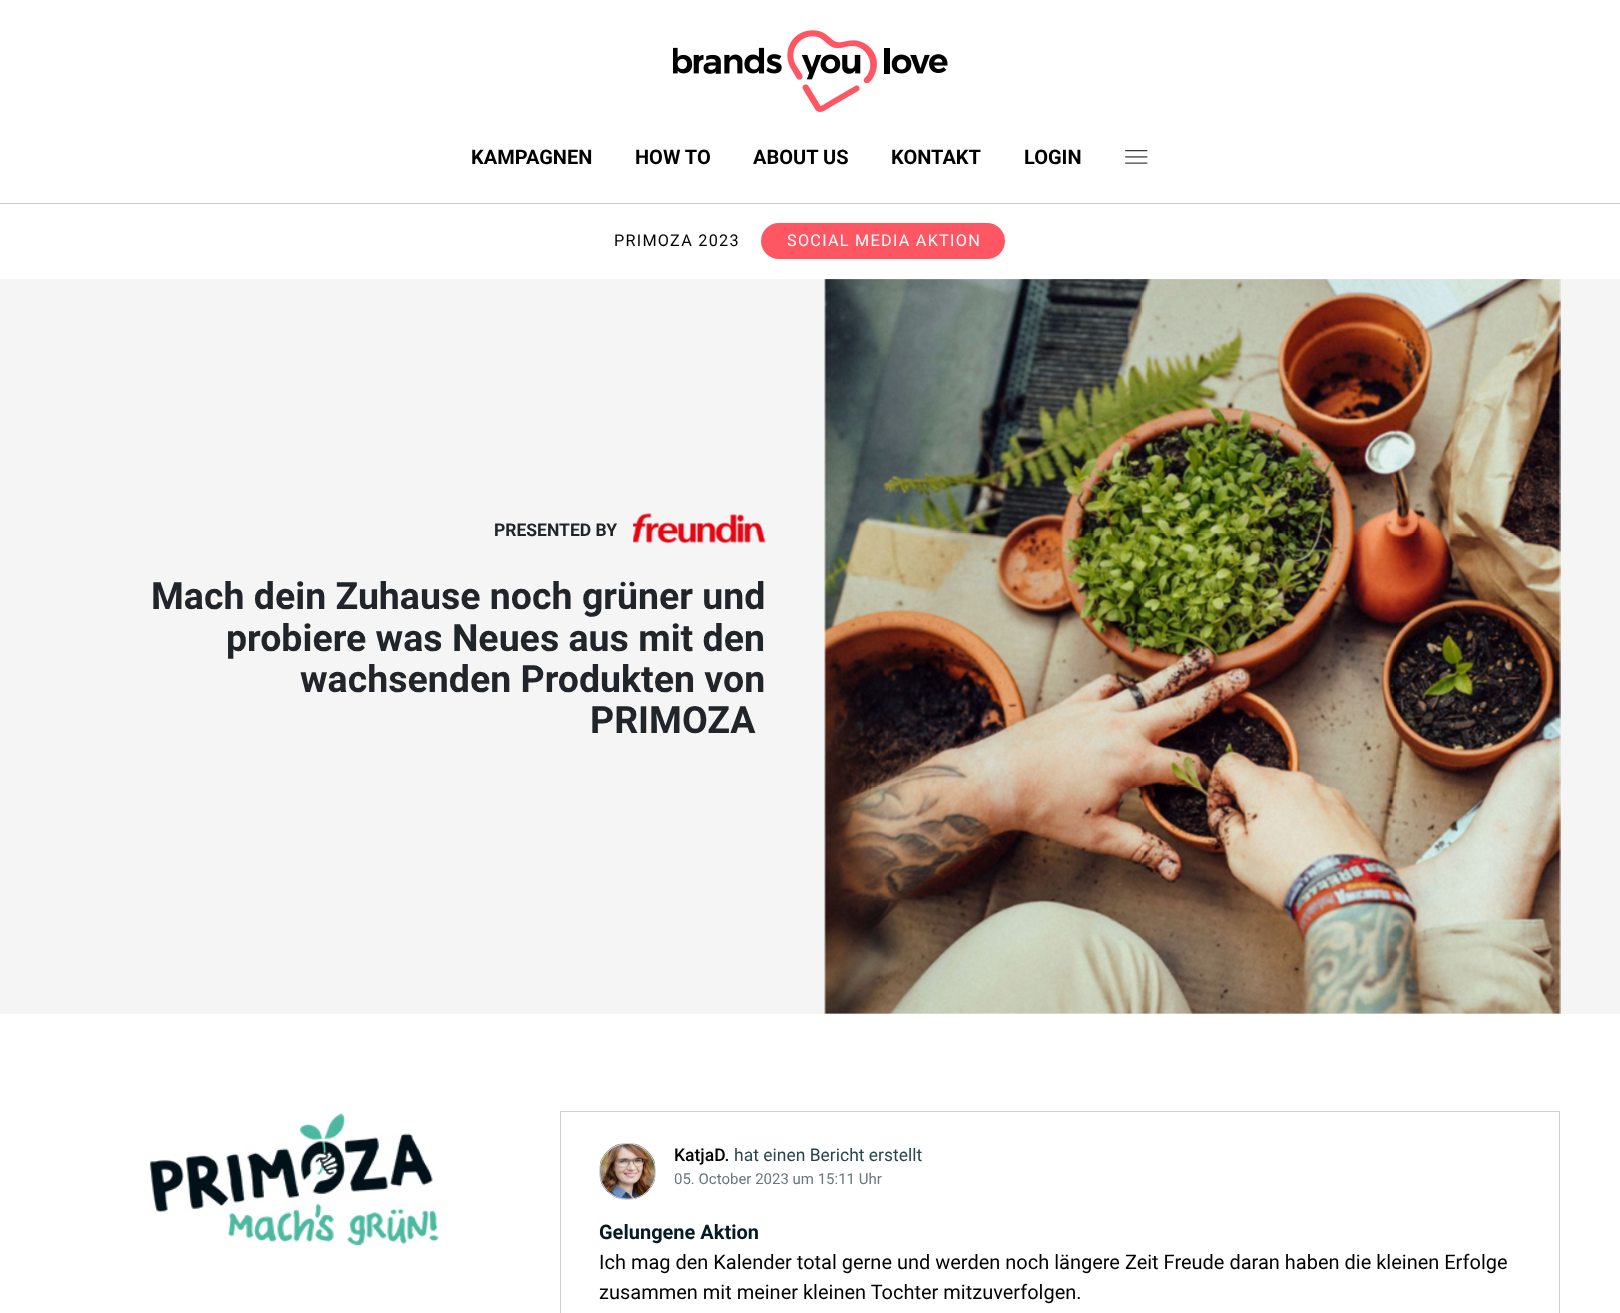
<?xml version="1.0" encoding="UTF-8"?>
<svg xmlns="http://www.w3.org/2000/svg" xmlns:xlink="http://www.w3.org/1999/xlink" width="1620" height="1313">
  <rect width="100%" height="100%" fill="#ffffff" />
  <image x="673" y="30" width="275" height="82" xlink:href="image1.png" />
  <image x="1125" y="150" width="23" height="14" xlink:href="image2.png" />
  <rect y="203" width="1620" height="1" fill="#cccccc" />
  <rect x="761" y="223" width="244" height="36" rx="18" fill="#fe5662" />
  <rect y="279" width="1620" height="735" fill="#f5f5f5" />
  <image x="633" y="513" width="133" height="31" xlink:href="image3.png" />
  <image x="824" y="279" width="737" height="735" xlink:href="image4.png" />
  <image x="149" y="1113" width="290" height="133" xlink:href="image5.png" />
  <rect x="560.5" y="1111.5" width="999" height="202" fill="none" stroke="#cdd1d3" />
  <image x="600" y="1143" width="55" height="56" xlink:href="image6.png" />
  <circle cx="627.5" cy="1171.5" r="28" fill="none" stroke="#cdd1d3" />
  <text x="471" y="164" style="font-family: Roboto; font-size: 20px; font-weight: bold; fill: #000000">KAMPAGNEN</text>
  <text x="635" y="164" style="font-family: Roboto; font-size: 20px; font-weight: bold; fill: #000000">HOW TO</text>
  <text x="753" y="164" style="font-family: Roboto; font-size: 20px; font-weight: bold; fill: #000000">ABOUT US</text>
  <text x="891" y="164" style="font-family: Roboto; font-size: 20px; font-weight: bold; fill: #000000">KONTAKT</text>
  <text x="1024" y="164" style="font-family: Roboto; font-size: 20px; font-weight: bold; fill: #000000">LOGIN</text>
  <text x="614" y="246" style="font-family: Roboto; font-size: 16.25px; letter-spacing: 1.25px; fill: #000000">PRIMOZA 2023</text>
  <text x="787" y="246" style="font-family: Roboto; font-size: 16.25px; letter-spacing: 1.25px; fill: #ffffff">SOCIAL MEDIA AKTION</text>
  <text x="494" y="536" style="font-family: Roboto; font-size: 17.5px; font-weight: bold; fill: #212529">PRESENTED BY</text>
  <text x="151" y="609" style="font-family: 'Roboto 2'; font-size: 37.5px; font-weight: bold; fill: #212529">Mach dein Zuhause noch grüner und</text>
  <text x="226" y="651" style="font-family: 'Roboto 2'; font-size: 37.5px; font-weight: bold; fill: #212529">probiere was Neues aus mit den</text>
  <text x="300" y="692" style="font-family: 'Roboto 2'; font-size: 37.5px; font-weight: bold; fill: #212529">wachsenden Produkten von</text>
  <text x="590" y="733" style="font-family: 'Roboto 2'; font-size: 37.5px; font-weight: bold; fill: #212529">PRIMOZA</text>
  <text x="674" y="1161" style="font-family: Roboto; font-size: 17.5px; font-weight: 500; fill: #000000">KatjaD.</text>
  <text x="734" y="1161" style="font-family: Roboto; font-size: 17.5px; fill: #284650">hat einen Bericht erstellt</text>
  <text x="674" y="1184" style="font-family: Roboto; font-size: 15px; fill: #69767b">05. October 2023 um 15:11 Uhr</text>
  <text x="599" y="1239" style="font-family: 'Roboto 2'; font-size: 20px; font-weight: bold; fill: #051b23">Gelungene Aktion</text>
  <text x="599" y="1269" style="font-family: Roboto; font-size: 20px; fill: #000000">Ich mag den Kalender total gerne und werden noch längere Zeit Freude daran haben die kleinen Erfolge</text>
  <text x="599" y="1299" style="font-family: Roboto; font-size: 20px; fill: #000000">zusammen mit meiner kleinen Tochter mitzuverfolgen.</text>
</svg>
